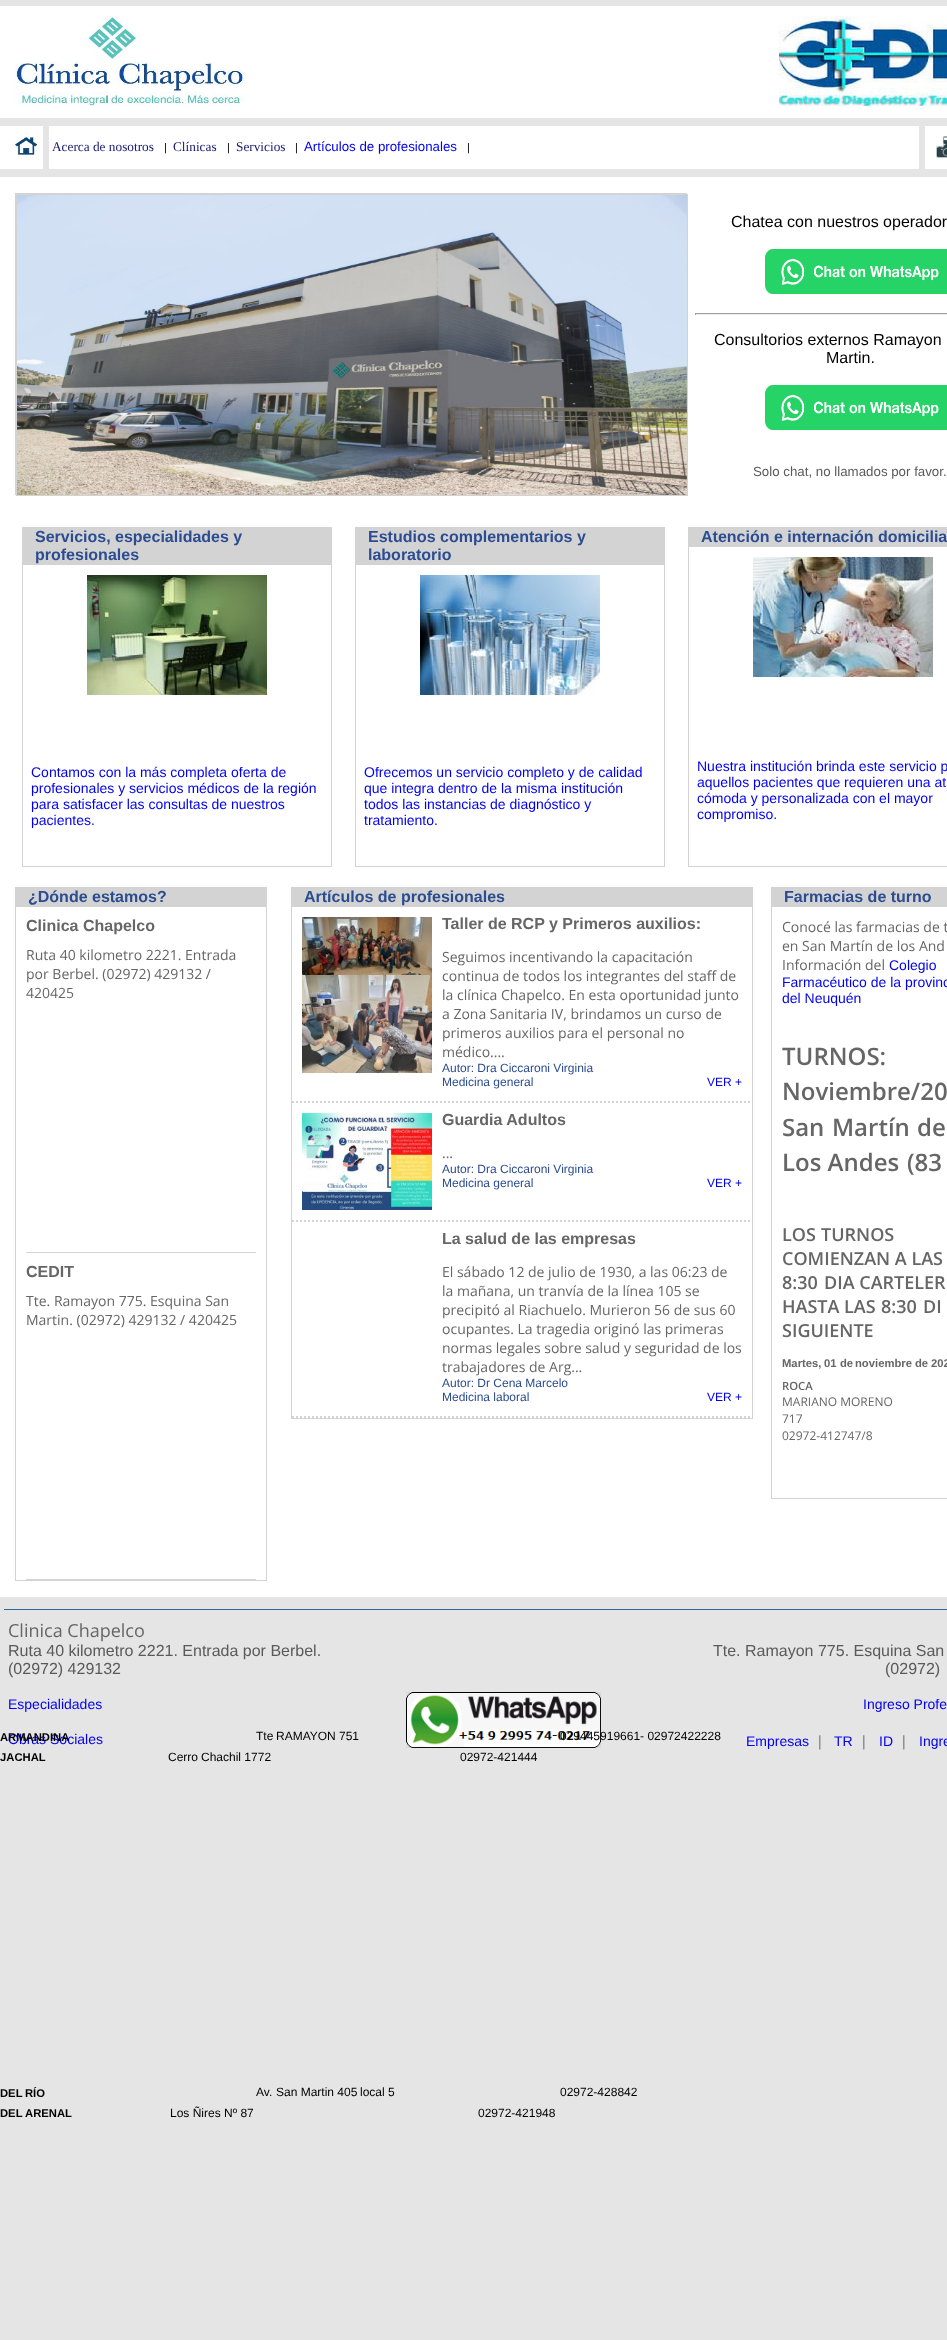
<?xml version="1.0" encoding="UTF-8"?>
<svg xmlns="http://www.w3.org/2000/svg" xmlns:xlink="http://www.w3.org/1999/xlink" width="947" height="2340">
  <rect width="100%" height="100%" fill="#e6e5e6" />
  <rect y="6" width="947" height="1591" fill="#ffffff" />
  <image x="15" y="16" width="230" height="90" xlink:href="image1.png" />
  <image x="779" y="16" width="168" height="90" xlink:href="image2.png" />
  <rect y="118" width="947" height="8" fill="#e6e5e6" />
  <image x="15" y="137" width="22" height="18" xlink:href="image3.png" />
  <rect x="43" y="126" width="6" height="43" fill="#e6e5e6" />
  <rect x="919" y="126" width="6" height="43" fill="#e6e5e6" />
  <image x="936" y="136" width="11" height="22" xlink:href="image4.png" />
  <rect y="169" width="947" height="8" fill="#e6e5e6" />
  <rect x="15.5" y="193.5" width="671" height="301" fill="none" stroke="#d3d3d3" />
  <rect x="16.5" y="194.5" width="671" height="301" fill="none" stroke="#d3d3d3" />
  <image x="17" y="195" width="670" height="300" xlink:href="image5.png" />
  <image x="765" y="249" width="182" height="45" xlink:href="image6.png" />
  <rect x="695" y="313" width="252" height="1" fill="#9f9f9f" />
  <rect x="695" y="314" width="252" height="1" fill="#eeeeee" />
  <rect x="695" y="313" width="1" height="2" fill="#9f9f9f" />
  <image x="765" y="385" width="182" height="45" xlink:href="image6.png" />
  <rect x="22.5" y="527.5" width="309" height="339" fill="none" stroke="#d3d3d3" />
  <rect x="23" y="528" width="308" height="37" fill="#d3d3d3" />
  <image x="87" y="575" width="180" height="120" xlink:href="image7.png" />
  <rect x="355.5" y="527.5" width="309" height="339" fill="none" stroke="#d3d3d3" />
  <rect x="356" y="528" width="308" height="37" fill="#d3d3d3" />
  <image x="420" y="575" width="180" height="120" xlink:href="image8.png" />
  <rect x="688.5" y="527.5" width="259" height="339" fill="none" stroke="#d3d3d3" />
  <rect x="689" y="528" width="258" height="19" fill="#d3d3d3" />
  <image x="753" y="557" width="180" height="120" xlink:href="image9.png" />
  <rect x="771.5" y="887.5" width="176" height="611" fill="none" stroke="#d3d3d3" />
  <rect x="772" y="888" width="175" height="19" fill="#d3d3d3" />
  <rect x="15.5" y="887.5" width="251" height="693" fill="none" stroke="#d3d3d3" />
  <rect x="16" y="888" width="250" height="19" fill="#d3d3d3" />
  <rect x="26" y="1252" width="230" height="1" fill="#d4d4d4" />
  <rect x="26" y="1579" width="230" height="1" fill="#d4d4d4" />
  <rect x="291.5" y="887.5" width="461" height="531" fill="none" stroke="#d3d3d3" />
  <rect x="292" y="888" width="460" height="19" fill="#d3d3d3" />
  <path d="M 292 1102 h 140" fill="none" stroke="#d4d4d4" stroke-width="2" stroke-dasharray="2 2" />
  <image x="302" y="917" width="130" height="58" xlink:href="image10.png" />
  <image x="302" y="975" width="130" height="98" xlink:href="image11.png" />
  <path d="M 432 1102 h 320" fill="none" stroke="#d4d4d4" stroke-width="2" stroke-dasharray="2 2" />
  <path d="M 292 1221 h 140" fill="none" stroke="#d4d4d4" stroke-width="2" stroke-dasharray="2 2" />
  <image x="302" y="1113" width="130" height="97" xlink:href="image12.png" />
  <path d="M 432 1221 h 320" fill="none" stroke="#d4d4d4" stroke-width="2" stroke-dasharray="2 2" />
  <path d="M 432 1417 h 320" fill="none" stroke="#d4d4d4" stroke-width="2" stroke-dasharray="2 2" />
  <path d="M 292 1417 h 140" fill="none" stroke="#d4d4d4" stroke-width="2" stroke-dasharray="2 2" />
  <rect x="4" y="1609" width="943" height="1" fill="#336699" />
  <image x="406" y="1692" width="195" height="56" xlink:href="image13.png" />
  <text x="52" y="151" style="font-family: Liberation Serif; font-size: 13.3px; fill: #191970">Acerca de nosotros</text>
  <text x="164" y="151" style="font-family: Liberation Sans; font-size: 11px; fill: #000000">|</text>
  <text x="173" y="151" style="font-family: Liberation Serif; font-size: 13.3px; fill: #191970">Clínicas</text>
  <text x="227" y="151" style="font-family: Liberation Sans; font-size: 11px; fill: #000000">|</text>
  <text x="236" y="151" style="font-family: Liberation Serif; font-size: 13.3px; fill: #191970">Servicios</text>
  <text x="295" y="151" style="font-family: Liberation Sans; font-size: 11px; fill: #000000">|</text>
  <text x="304" y="151" style="font-family: Liberation Sans; font-size: 13.3px; fill: #0000ee">Artículos de profesionales</text>
  <text x="467" y="151" style="font-family: Liberation Sans; font-size: 11px; fill: #000000">|</text>
  <text x="731" y="227" style="font-family: Liberation Sans; font-size: 16px; fill: #000000">Chatea con nuestros operador</text>
  <text x="714" y="345" style="font-family: Liberation Sans; font-size: 16px; fill: #000000">Consultorios externos Ramayon</text>
  <text x="826" y="363" style="font-family: Liberation Sans; font-size: 16px; fill: #000000">Martin.</text>
  <text x="753" y="476" style="font-family: Liberation Sans; font-size: 13.3px; fill: #5a5a5a">Solo chat, no llamados por favor.</text>
  <text x="35" y="542" style="font-family: Liberation Sans; font-size: 16px; font-weight: bold; fill: #2b4c91">Servicios, especialidades y</text>
  <text x="35" y="560" style="font-family: Liberation Sans; font-size: 16px; font-weight: bold; fill: #2b4c91">profesionales</text>
  <text x="31" y="777" style="font-family: Liberation Sans; font-size: 14px; fill: #0000ee">Contamos con la más completa oferta de</text>
  <text x="31" y="793" style="font-family: Liberation Sans; font-size: 14px; fill: #0000ee">profesionales y servicios médicos de la región</text>
  <text x="31" y="809" style="font-family: Liberation Sans; font-size: 14px; fill: #0000ee">para satisfacer las consultas de nuestros</text>
  <text x="31" y="825" style="font-family: Liberation Sans; font-size: 14px; fill: #0000ee">pacientes.</text>
  <text x="368" y="542" style="font-family: Liberation Sans; font-size: 16px; font-weight: bold; fill: #2b4c91">Estudios complementarios y</text>
  <text x="368" y="560" style="font-family: Liberation Sans; font-size: 16px; font-weight: bold; fill: #2b4c91">laboratorio</text>
  <text x="364" y="777" style="font-family: Liberation Sans; font-size: 14px; fill: #0000ee">Ofrecemos un servicio completo y de calidad</text>
  <text x="364" y="793" style="font-family: Liberation Sans; font-size: 14px; fill: #0000ee">que integra dentro de la misma institución</text>
  <text x="364" y="809" style="font-family: Liberation Sans; font-size: 14px; fill: #0000ee">todos las instancias de diagnóstico y</text>
  <text x="364" y="825" style="font-family: Liberation Sans; font-size: 14px; fill: #0000ee">tratamiento.</text>
  <text x="701" y="542" style="font-family: Liberation Sans; font-size: 16px; font-weight: bold; fill: #2b4c91">Atención e internación domicilia</text>
  <text x="697" y="771" style="font-family: Liberation Sans; font-size: 14px; fill: #0000ee">Nuestra institución brinda este servicio p</text>
  <text x="697" y="787" style="font-family: Liberation Sans; font-size: 14px; fill: #0000ee">aquellos pacientes que requieren una at</text>
  <text x="697" y="803" style="font-family: Liberation Sans; font-size: 14px; fill: #0000ee">cómoda y personalizada con el mayor</text>
  <text x="697" y="819" style="font-family: Liberation Sans; font-size: 14px; fill: #0000ee">compromiso.</text>
  <text x="784" y="902" style="font-family: Liberation Sans; font-size: 16px; font-weight: bold; fill: #2b4c91">Farmacias de turno</text>
  <text x="782" y="932" style="font-family: Open Sans; font-size: 14px; fill: #666666">Conocé las farmacias de t</text>
  <text x="782" y="951" style="font-family: Open Sans; font-size: 14px; fill: #666666">en San Martín de los And</text>
  <text x="782" y="970" style="font-family: Open Sans; font-size: 14px; fill: #666666">Información del</text>
  <text x="889" y="970" style="font-family: Liberation Sans; font-size: 14px; fill: #0000ee">Colegio</text>
  <text x="782" y="987" style="font-family: Liberation Sans; font-size: 14px; fill: #0000ee">Farmacéutico de la provinc</text>
  <text x="782" y="1003" style="font-family: Liberation Sans; font-size: 14px; fill: #0000ee">del Neuquén</text>
  <text x="782" y="1065" style="font-family: Open Sans; font-size: 24px; font-weight: 600; fill: #666666">TURNOS:</text>
  <text x="782" y="1100" style="font-family: Open Sans; font-size: 24px; font-weight: 600; fill: #666666">Noviembre/20</text>
  <text x="782" y="1136" style="font-family: Open Sans; font-size: 24px; font-weight: 600; fill: #666666">San</text>
  <text x="832" y="1136" style="font-family: Open Sans; font-size: 24px; font-weight: 600; fill: #666666">Martín</text>
  <text x="917" y="1136" style="font-family: Open Sans; font-size: 24px; font-weight: 600; fill: #666666">de</text>
  <text x="782" y="1171" style="font-family: Open Sans; font-size: 24px; font-weight: 600; fill: #666666">Los Andes</text>
  <text x="907" y="1171" style="font-family: Open Sans; font-size: 24px; font-weight: 600; fill: #666666">(83</text>
  <text x="782" y="1241" style="font-family: Open Sans; font-size: 18px; font-weight: 600; fill: #666666">LOS</text>
  <text x="821" y="1241" style="font-family: Open Sans; font-size: 18px; font-weight: 600; fill: #666666">TURNOS</text>
  <text x="782" y="1265" style="font-family: Open Sans; font-size: 18px; font-weight: 600; fill: #666666">COMIENZAN A LAS</text>
  <text x="782" y="1289" style="font-family: Open Sans; font-size: 18px; font-weight: 600; fill: #666666">8:30</text>
  <text x="824" y="1289" style="font-family: Open Sans; font-size: 18px; font-weight: 600; fill: #666666">DIA CARTELER</text>
  <text x="782" y="1313" style="font-family: Open Sans; font-size: 18px; font-weight: 600; fill: #666666">HASTA LAS</text>
  <text x="881" y="1313" style="font-family: Open Sans; font-size: 18px; font-weight: 600; fill: #666666">8:30</text>
  <text x="923" y="1313" style="font-family: Open Sans; font-size: 18px; font-weight: 600; fill: #666666">DI</text>
  <text x="782" y="1337" style="font-family: Open Sans; font-size: 18px; font-weight: 600; fill: #666666">SIGUIENTE</text>
  <text x="782" y="1367" style="font-family: Liberation Sans; font-size: 11.25px; font-weight: bold; fill: #666666">Martes,</text>
  <text x="824" y="1367" style="font-family: Liberation Sans; font-size: 11.25px; font-weight: bold; fill: #666666">01</text>
  <text x="840" y="1367" style="font-family: Liberation Sans; font-size: 11.25px; font-weight: bold; fill: #666666">de</text>
  <text x="855" y="1367" style="font-family: Liberation Sans; font-size: 11.25px; font-weight: bold; fill: #666666">noviembre</text>
  <text x="915" y="1367" style="font-family: Liberation Sans; font-size: 11.25px; font-weight: bold; fill: #666666">de</text>
  <text x="931" y="1367" style="font-family: Liberation Sans; font-size: 11.25px; font-weight: bold; fill: #666666">202</text>
  <text x="782" y="1390" style="font-family: Open Sans; font-size: 11.25px; font-weight: 600; fill: #666666">ROCA</text>
  <text x="782" y="1406" style="font-family: Open Sans; font-size: 12px; fill: #666666">MARIANO MORENO</text>
  <text x="782" y="1423" style="font-family: Open Sans; font-size: 12px; fill: #666666">717</text>
  <text x="782" y="1440" style="font-family: Open Sans; font-size: 12px; fill: #666666">02972-412747/8</text>
  <text x="256" y="1740" style="font-family: Liberation Sans; font-size: 12px; fill: #000000">Tte</text>
  <text x="276" y="1740" style="font-family: Liberation Sans; font-size: 12px; fill: #000000">RAMAYON</text>
  <text x="339" y="1740" style="font-family: Liberation Sans; font-size: 12px; fill: #000000">751</text>
  <text x="560" y="1740" style="font-family: Liberation Sans; font-size: 12px; fill: #000000">029445919661- 02972422228</text>
  <text x="0" y="1761" style="font-family: Liberation Sans; font-size: 11.25px; font-weight: bold; fill: #000000">JACHAL</text>
  <text x="168" y="1761" style="font-family: Liberation Sans; font-size: 12px; fill: #000000">Cerro</text>
  <text x="201" y="1761" style="font-family: Liberation Sans; font-size: 12px; fill: #000000">Chachil 1772</text>
  <text x="460" y="1761" style="font-family: Liberation Sans; font-size: 12px; fill: #000000">02972-421444</text>
  <text x="0" y="2097" style="font-family: Liberation Sans; font-size: 11.25px; font-weight: bold; fill: #000000">DEL</text>
  <text x="25" y="2097" style="font-family: Liberation Sans; font-size: 11.25px; font-weight: bold; fill: #000000">RÍO</text>
  <text x="256" y="2096" style="font-family: Liberation Sans; font-size: 12px; fill: #000000">Av.</text>
  <text x="276" y="2096" style="font-family: Liberation Sans; font-size: 12px; fill: #000000">San Martin 405</text>
  <text x="360" y="2096" style="font-family: Liberation Sans; font-size: 12px; fill: #000000">local 5</text>
  <text x="560" y="2096" style="font-family: Liberation Sans; font-size: 12px; fill: #000000">02972-428842</text>
  <text x="0" y="2117" style="font-family: Liberation Sans; font-size: 11.25px; font-weight: bold; fill: #000000">DEL ARENAL</text>
  <text x="170" y="2117" style="font-family: Liberation Sans; font-size: 12px; fill: #000000">Los Ñires Nº 87</text>
  <text x="478" y="2117" style="font-family: Liberation Sans; font-size: 12px; fill: #000000">02972-421948</text>
  <text x="28" y="902" style="font-family: Liberation Sans; font-size: 16px; font-weight: bold; fill: #2b4c91">¿Dónde estamos?</text>
  <text x="26" y="931" style="font-family: Liberation Sans; font-size: 16px; font-weight: bold; fill: #666666">Clinica Chapelco</text>
  <text x="26" y="960" style="font-family: Open Sans; font-size: 14px; fill: #666666">Ruta 40 kilometro 2221. Entrada</text>
  <text x="26" y="979" style="font-family: Open Sans; font-size: 14px; fill: #666666">por Berbel. (02972) 429132 /</text>
  <text x="26" y="998" style="font-family: Open Sans; font-size: 14px; fill: #666666">420425</text>
  <text x="26" y="1277" style="font-family: Liberation Sans; font-size: 16px; font-weight: bold; fill: #666666">CEDIT</text>
  <text x="26" y="1306" style="font-family: Open Sans; font-size: 14px; fill: #666666">Tte. Ramayon 775. Esquina San</text>
  <text x="26" y="1325" style="font-family: Open Sans; font-size: 14px; fill: #666666">Martin. (02972) 429132 / 420425</text>
  <text x="304" y="902" style="font-family: Liberation Sans; font-size: 16px; font-weight: bold; fill: #2b4c91">Artículos de profesionales</text>
  <text x="442" y="929" style="font-family: Liberation Sans; font-size: 16px; font-weight: bold; fill: #666666">Taller de RCP y Primeros auxilios:</text>
  <text x="442" y="962" style="font-family: Open Sans; font-size: 14px; fill: #666666">Seguimos incentivando la capacitación</text>
  <text x="442" y="981" style="font-family: Open Sans; font-size: 14px; fill: #666666">continua de todos los integrantes del staff de</text>
  <text x="442" y="1000" style="font-family: Open Sans; font-size: 14px; fill: #666666">la clínica Chapelco. En esta oportunidad junto</text>
  <text x="442" y="1019" style="font-family: Open Sans; font-size: 14px; fill: #666666">a Zona Sanitaria IV, brindamos un curso de</text>
  <text x="442" y="1038" style="font-family: Open Sans; font-size: 14px; fill: #666666">primeros auxilios para el personal no</text>
  <text x="442" y="1057" style="font-family: Open Sans; font-size: 14px; fill: #666666">médico....</text>
  <text x="442" y="1072" style="font-family: Liberation Sans; font-size: 12px; fill: #2b4c91">Autor: Dra Ciccaroni Virginia</text>
  <text x="442" y="1086" style="font-family: Liberation Sans; font-size: 12px; fill: #2b4c91">Medicina general</text>
  <text x="707" y="1086" style="font-family: Liberation Sans; font-size: 12px; fill: #0000ee">VER +</text>
  <text x="442" y="1125" style="font-family: Liberation Sans; font-size: 16px; font-weight: bold; fill: #666666">Guardia Adultos</text>
  <text x="442" y="1158" style="font-family: Open Sans; font-size: 14px; fill: #666666">...</text>
  <text x="442" y="1173" style="font-family: Liberation Sans; font-size: 12px; fill: #2b4c91">Autor: Dra Ciccaroni Virginia</text>
  <text x="442" y="1187" style="font-family: Liberation Sans; font-size: 12px; fill: #2b4c91">Medicina general</text>
  <text x="707" y="1187" style="font-family: Liberation Sans; font-size: 12px; fill: #0000ee">VER +</text>
  <text x="442" y="1244" style="font-family: Liberation Sans; font-size: 16px; font-weight: bold; fill: #666666">La salud de las empresas</text>
  <text x="442" y="1277" style="font-family: Open Sans; font-size: 14px; fill: #666666">El sábado 12 de julio de 1930, a las 06:23 de</text>
  <text x="442" y="1296" style="font-family: Open Sans; font-size: 14px; fill: #666666">la mañana, un tranvía de la línea 105 se</text>
  <text x="442" y="1315" style="font-family: Open Sans; font-size: 14px; fill: #666666">precipitó al Riachuelo. Murieron 56 de sus 60</text>
  <text x="442" y="1334" style="font-family: Open Sans; font-size: 14px; fill: #666666">ocupantes. La tragedia originó las primeras</text>
  <text x="442" y="1353" style="font-family: Open Sans; font-size: 14px; fill: #666666">normas legales sobre salud y seguridad de los</text>
  <text x="442" y="1372" style="font-family: Open Sans; font-size: 14px; fill: #666666">trabajadores de Arg...</text>
  <text x="442" y="1387" style="font-family: Liberation Sans; font-size: 12px; fill: #2b4c91">Autor: Dr Cena Marcelo</text>
  <text x="442" y="1401" style="font-family: Liberation Sans; font-size: 12px; fill: #2b4c91">Medicina laboral</text>
  <text x="707" y="1401" style="font-family: Liberation Sans; font-size: 12px; fill: #0000ee">VER +</text>
  <text x="8" y="1637" style="font-family: Open Sans; font-size: 18px; fill: #666666">Clinica Chapelco</text>
  <text x="8" y="1656" style="font-family: Liberation Sans; font-size: 16px; fill: #5a5a5a">Ruta 40 kilometro 2221. Entrada por Berbel.</text>
  <text x="8" y="1674" style="font-family: Liberation Sans; font-size: 16px; fill: #5a5a5a">(02972) 429132</text>
  <text x="713" y="1656" style="font-family: Liberation Sans; font-size: 16px; fill: #5a5a5a">Tte. Ramayon 775. Esquina San</text>
  <text x="885" y="1674" style="font-family: Liberation Sans; font-size: 16px; fill: #5a5a5a">(02972)</text>
  <text x="8" y="1709" style="font-family: Liberation Sans; font-size: 14px; fill: #0000ee">Especialidades</text>
  <text x="8" y="1744" style="font-family: Liberation Sans; font-size: 14px; fill: #0000ee">Obras Sociales</text>
  <text x="0" y="1741" style="font-family: Liberation Sans; font-size: 11.25px; font-weight: bold; fill: #000000">ARMANDINA</text>
  <text x="863" y="1709" style="font-family: Liberation Sans; font-size: 14px; fill: #0000ee">Ingreso Profe</text>
  <text x="746" y="1746" style="font-family: Liberation Sans; font-size: 14px; fill: #0000ee">Empresas</text>
  <text x="816" y="1746" style="font-family: Open Sans; font-size: 14px; fill: #666666">|</text>
  <text x="834" y="1746" style="font-family: Liberation Sans; font-size: 14px; fill: #0000ee">TR</text>
  <text x="860" y="1746" style="font-family: Open Sans; font-size: 14px; fill: #666666">|</text>
  <text x="879" y="1746" style="font-family: Liberation Sans; font-size: 14px; fill: #0000ee">ID</text>
  <text x="900" y="1746" style="font-family: Open Sans; font-size: 14px; fill: #666666">|</text>
  <text x="919" y="1746" style="font-family: Liberation Sans; font-size: 14px; fill: #0000ee">Ingre</text>
</svg>
